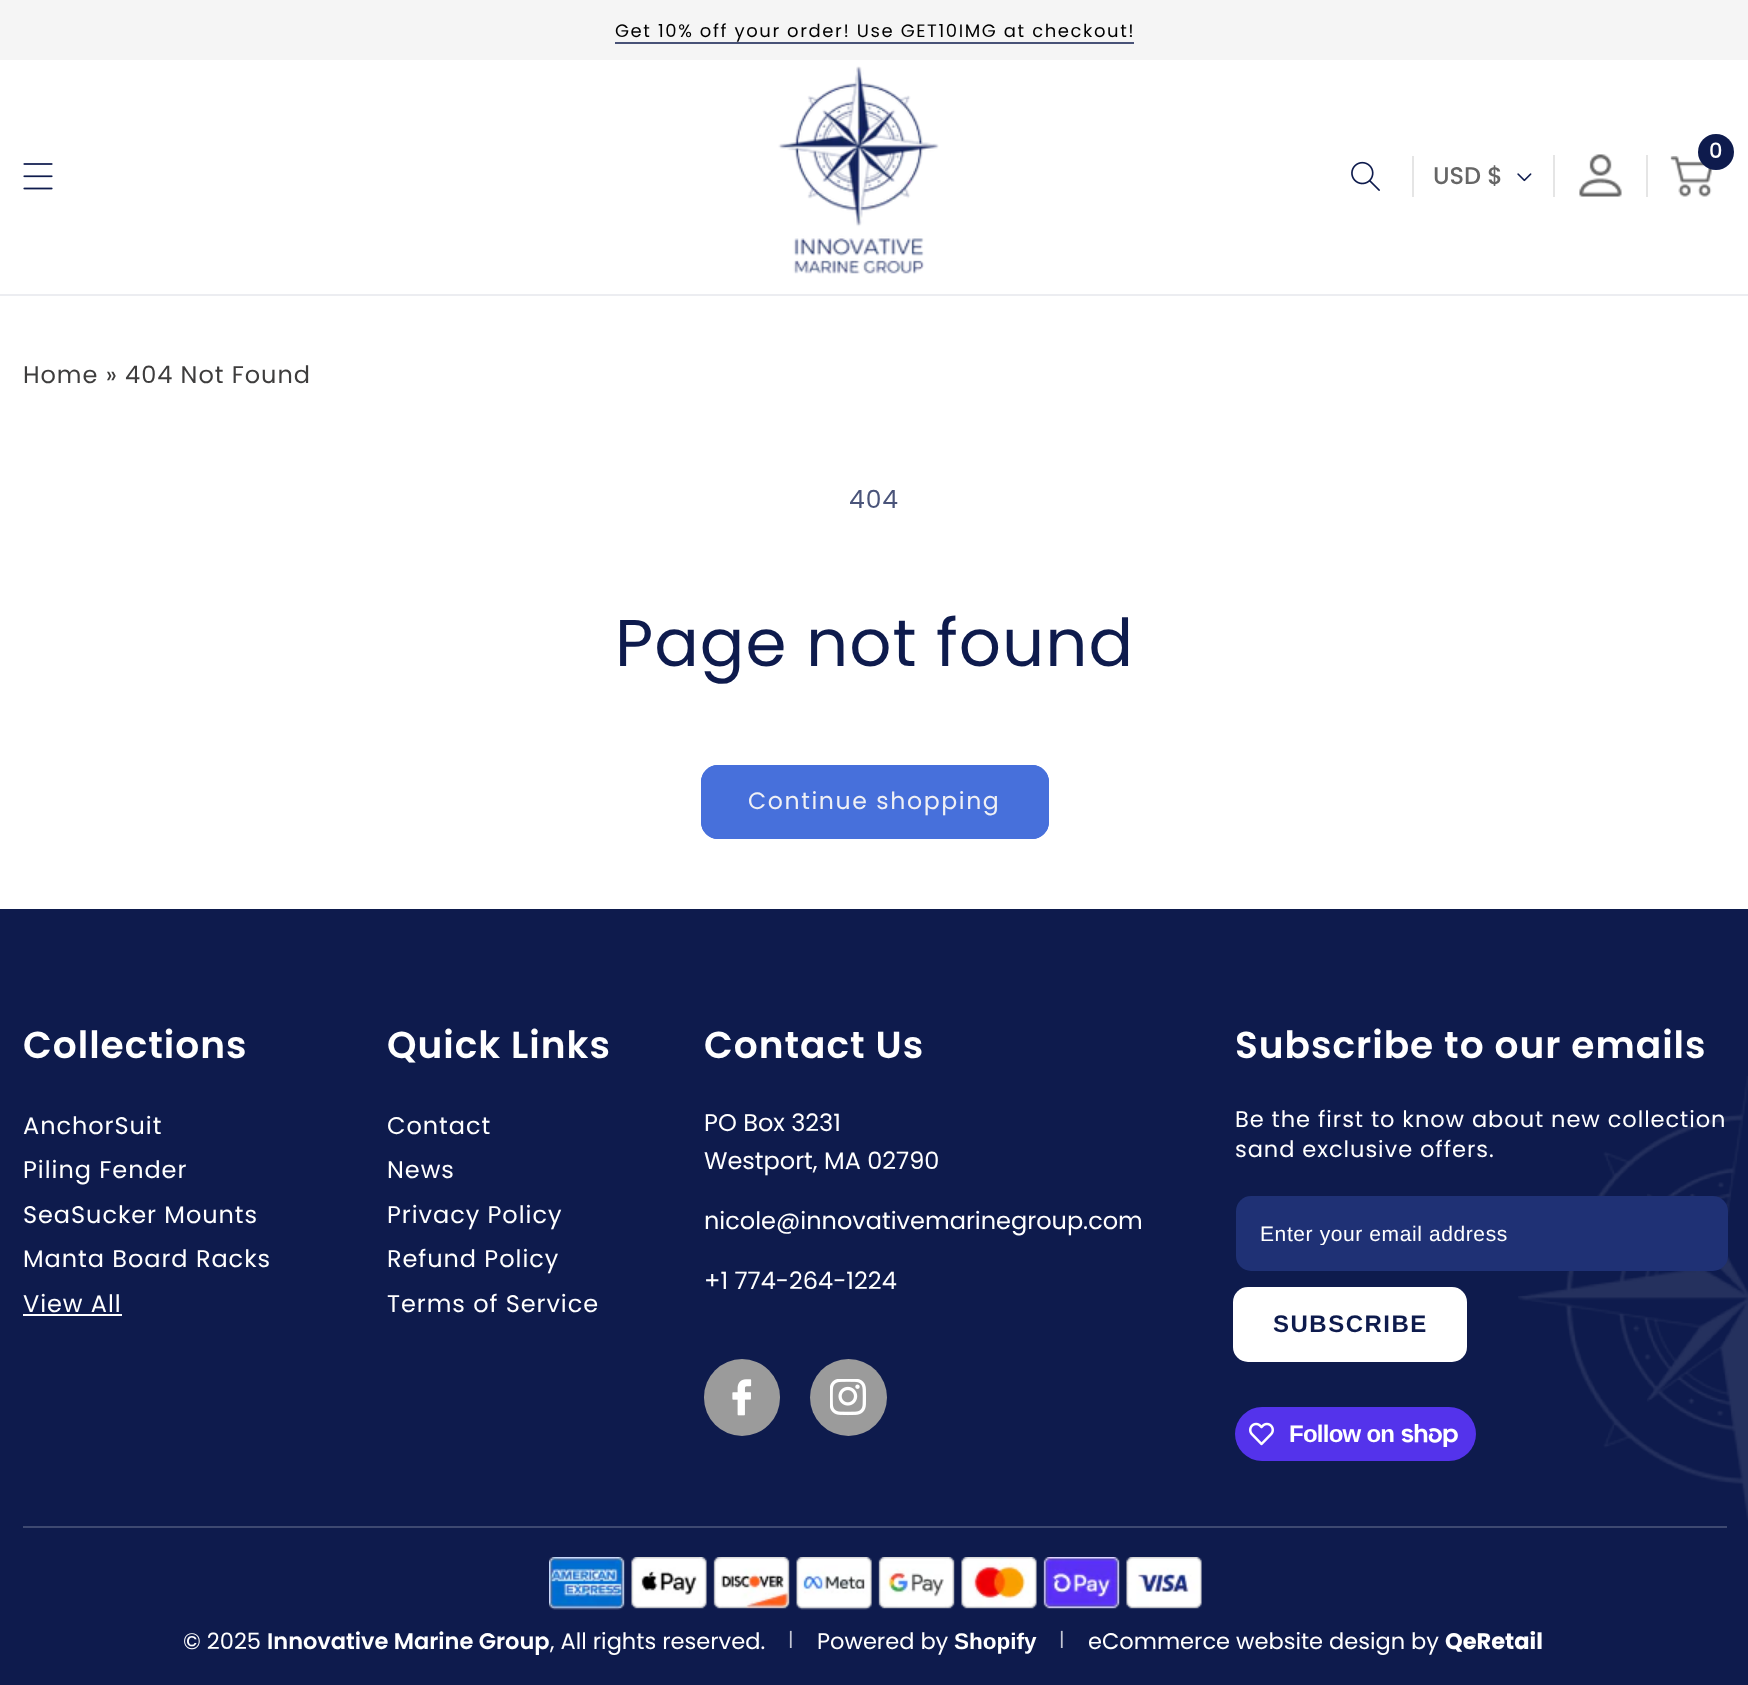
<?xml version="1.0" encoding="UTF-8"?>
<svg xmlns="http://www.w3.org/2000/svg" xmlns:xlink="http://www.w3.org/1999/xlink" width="1748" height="1685">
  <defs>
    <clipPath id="clip1"><rect x="1260" y="1221" width="453" height="24" /></clipPath>
  </defs>
  <rect width="100%" height="100%" fill="#ffffff" />
  <rect width="1748" height="60" fill="#f5f5f5" />
  <rect x="615" y="42" width="519" height="2" fill="#485277" />
  <rect y="294" width="1748" height="2" fill="#ecedf1" />
  <image x="23" y="163" width="30" height="27" xlink:href="image1.png" />
  <image x="778" y="66" width="161" height="208" xlink:href="image2.png" />
  <image x="1670" y="156" width="43" height="41" xlink:href="image3.png" />
  <circle cx="1716" cy="152" r="18" fill="#0e1b4d" />
  <rect x="1412" y="156" width="2" height="41" fill="#e5e5e5" />
  <image x="1351" y="161" width="29" height="30" xlink:href="image4.png" />
  <image x="1517" y="173" width="15" height="9" xlink:href="image5.png" />
  <rect x="1646" y="155" width="2" height="42" fill="#e5e5e5" />
  <rect x="1553" y="155" width="2" height="42" fill="#e5e5e5" />
  <image x="1579" y="154" width="43" height="43" xlink:href="image6.png" />
  <rect x="701" y="765" width="348" height="74" rx="17" fill="#4770db" />
  <rect x="702" y="766" width="346" height="72" rx="16" fill="none" stroke="#4770db" stroke-width="2" />
  <rect y="909" width="1748" height="776" fill="#0e1b4d" />
  <image x="1518" y="1076" width="230" height="444" xlink:href="image7.png" />
  <rect x="23" y="1314" width="99" height="2" fill="#ffffff" />
  <rect x="704" y="1359" width="76" height="77" rx="38" fill="#9b9b9b" />
  <image x="732" y="1379" width="20" height="37" xlink:href="image8.png" />
  <circle cx="848.5" cy="1397.5" r="38.5" fill="#9b9b9b" />
  <image x="830" y="1379" width="36" height="37" xlink:href="image9.png" />
  <rect x="1236" y="1196" width="492" height="75" rx="15" fill="#1f3175" />
  <rect x="1233" y="1287" width="234" height="75" rx="15" fill="#ffffff" />
  <rect x="1235" y="1407" width="241" height="54" rx="27" fill="#5433eb" />
  <image x="1249" y="1422" width="25" height="24" xlink:href="image10.png" />
  <image x="1401" y="1424" width="57" height="23" xlink:href="image11.png" />
  <rect x="23" y="1526" width="1704" height="2" fill="#3e4971" />
  <image x="549" y="1557" width="653" height="53" xlink:href="image12.png" />
  <text x="615" y="37" style="font-family: Poppins; font-size: 18px; letter-spacing: 1.6px; fill: #000000">Get 10% off your order! Use GET10IMG at checkout!</text>
  <text x="1709" y="158" style="font-family: Poppins; font-size: 21px; font-weight: 500; letter-spacing: 0.95px; fill: #ffffff">0</text>
  <text x="1433" y="184" style="font-family: Poppins; font-size: 24px; font-weight: 500; fill: #666666">USD $</text>
  <text x="23" y="383" style="font-family: Poppins; font-size: 24px; letter-spacing: 0.95px; fill: #3e3d3d">Home » 404 Not Found</text>
  <text x="849" y="508" style="font-family: Poppins; font-size: 25px; letter-spacing: 0.95px; fill: #4a547a">404</text>
  <text x="615" y="666" style="font-family: Poppins; font-size: 66px; letter-spacing: 1px; fill: #0e1b4d">Page not found</text>
  <text x="748" y="809" style="font-family: Poppins; font-size: 23.6px; letter-spacing: 1.6px; fill: #eff0f5">Continue shopping</text>
  <text x="23" y="1058" style="font-family: Poppins; font-size: 37.5px; font-weight: 600; letter-spacing: 1px; fill: #ffffff">Collections</text>
  <text x="23" y="1134" style="font-family: Poppins; font-size: 24px; letter-spacing: 0.95px; fill: #ffffff">AnchorSuit</text>
  <text x="23" y="1178" style="font-family: Poppins; font-size: 24px; letter-spacing: 0.95px; fill: #ffffff">Piling Fender</text>
  <text x="23" y="1223" style="font-family: Poppins; font-size: 24px; letter-spacing: 0.95px; fill: #ffffff">SeaSucker Mounts</text>
  <text x="23" y="1267" style="font-family: Poppins; font-size: 24px; letter-spacing: 0.95px; fill: #ffffff">Manta Board Racks</text>
  <text x="23" y="1312" style="font-family: Poppins; font-size: 24px; letter-spacing: 0.95px; fill: #ffffff">View All</text>
  <text x="387" y="1058" style="font-family: Poppins; font-size: 37.5px; font-weight: 600; letter-spacing: 1px; fill: #ffffff">Quick Links</text>
  <text x="387" y="1134" style="font-family: Poppins; font-size: 24px; letter-spacing: 0.95px; fill: #ffffff">Contact</text>
  <text x="387" y="1178" style="font-family: Poppins; font-size: 24px; letter-spacing: 0.95px; fill: #ffffff">News</text>
  <text x="387" y="1223" style="font-family: Poppins; font-size: 24px; letter-spacing: 0.95px; fill: #ffffff">Privacy Policy</text>
  <text x="387" y="1267" style="font-family: Poppins; font-size: 24px; letter-spacing: 0.95px; fill: #ffffff">Refund Policy</text>
  <text x="387" y="1312" style="font-family: Poppins; font-size: 24px; letter-spacing: 0.95px; fill: #ffffff">Terms of Service</text>
  <text x="704" y="1058" style="font-family: Poppins; font-size: 37.5px; font-weight: 600; letter-spacing: 1px; fill: #ffffff">Contact Us</text>
  <text x="704" y="1131" style="font-family: Poppins; font-size: 24px; fill: #ffffff">PO Box 3231</text>
  <text x="704" y="1169" style="font-family: Poppins; font-size: 24px; fill: #ffffff">Westport, MA 02790</text>
  <text x="704" y="1229" style="font-family: Poppins; font-size: 24px; fill: #ffffff">nicole@innovativemarinegroup.com</text>
  <text x="704" y="1289" style="font-family: Poppins; font-size: 24px; fill: #ffffff">+1 774-264-1224</text>
  <text x="1235" y="1058" style="font-family: Poppins; font-size: 37.5px; font-weight: 600; letter-spacing: 1px; fill: #ffffff">Subscribe to our emails</text>
  <text x="1235" y="1127" style="font-family: Poppins; font-size: 22.5px; letter-spacing: 0.95px; fill: #ffffff">Be the first to know about new collection</text>
  <text x="1235" y="1157" style="font-family: Poppins; font-size: 22.5px; letter-spacing: 0.95px; fill: #ffffff">sand exclusive offers.</text>
  <g clip-path="url(#clip1)">
    <text x="1260" y="1241" style="font-family: Liberation Sans; font-size: 21px; letter-spacing: 0.6px; fill: #ffffff">Enter your email address</text>
  </g>
  <text x="1273" y="1332" style="font-family: Liberation Sans; font-size: 24px; font-weight: bold; letter-spacing: 1.5px; fill: #0e1b4d">SUBSCRIBE</text>
  <text x="1289" y="1442" style="font-family: Liberation Sans; font-size: 24px; font-weight: bold; letter-spacing: -0.75px; fill: #ffffff">Follow on</text>
  <text x="183" y="1649" style="font-family: Poppins; font-size: 22.5px; fill: #ffffff">© 2025</text>
  <text x="267" y="1649" style="font-family: Poppins; font-size: 22.5px; font-weight: 600; fill: #ffffff">Innovative Marine Group</text>
  <text x="550" y="1649" style="font-family: Poppins; font-size: 22.5px; fill: #ffffff">, All rights reserved.</text>
  <text x="788" y="1646" style="font-family: Poppins; font-size: 19px; letter-spacing: 1px; fill: #c3c6d3">|</text>
  <text x="817" y="1649" style="font-family: Poppins; font-size: 22.5px; fill: #ffffff">Powered by</text>
  <text x="954" y="1649" style="font-family: Liberation Sans; font-size: 22.5px; font-weight: bold; fill: #ffffff">Shopify</text>
  <text x="1059" y="1646" style="font-family: Poppins; font-size: 19px; letter-spacing: 1px; fill: #c3c6d3">|</text>
  <text x="1088" y="1649" style="font-family: Poppins; font-size: 22.5px; fill: #ffffff">eCommerce website design by</text>
  <text x="1445" y="1649" style="font-family: Poppins; font-size: 22.5px; font-weight: bold; fill: #ffffff">QeRetail</text>
</svg>
